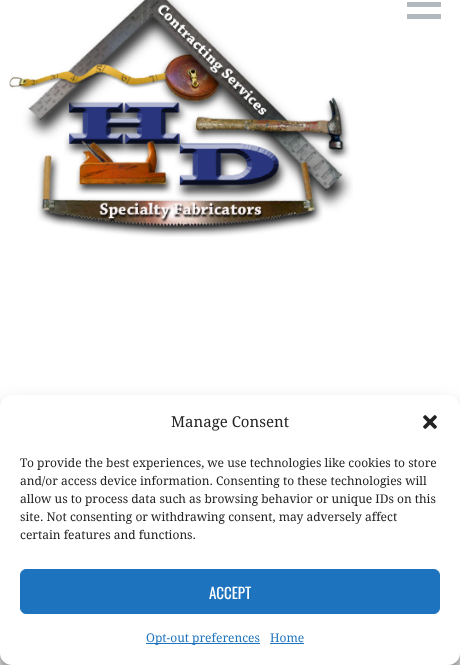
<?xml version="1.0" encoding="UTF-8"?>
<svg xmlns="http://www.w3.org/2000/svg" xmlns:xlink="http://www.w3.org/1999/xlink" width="460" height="665">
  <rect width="100%" height="100%" fill="#e2e2e2" />
  <rect width="460" height="407" fill="#ffffff" />
  <image x="9" y="0" width="344" height="237" xlink:href="image1.png" />
  <rect x="407" y="2" width="34" height="5" fill="#b1b9bf" />
  <rect x="407" y="14" width="34" height="5" fill="#b1b9bf" />
  <rect y="401" width="460" height="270" rx="12" fill="#000000" fill-opacity="0.23" filter="blur(3px)" />
  <rect y="405" width="460" height="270" rx="12" fill="#000000" fill-opacity="0.19" filter="blur(10px)" />
  <rect y="395" width="460" height="270" rx="12" fill="#ffffff" />
  <image x="423" y="415" width="14" height="14" xlink:href="image2.png" />
  <rect x="20.5" y="569.5" width="419" height="44" rx="5.5" fill="#1e73be" stroke="#1e73be" />
  <rect x="146" y="643" width="114" height="1" fill="#1e73be" />
  <rect x="270" y="643" width="34" height="1" fill="#1e73be" />
  <text x="171" y="427" style="font-family: Droid Serif; font-size: 15px; fill: #222222">Manage Consent</text>
  <text x="20" y="467" style="font-family: Droid Serif; font-size: 12px; fill: #222222">To provide the best experiences, we use technologies like cookies to store</text>
  <text x="20" y="485" style="font-family: Droid Serif; font-size: 12px; fill: #222222">and/or access device information. Consenting to these technologies will</text>
  <text x="20" y="503" style="font-family: Droid Serif; font-size: 12px; fill: #222222">allow us to process data such as browsing behavior or unique IDs on this</text>
  <text x="20" y="521" style="font-family: Droid Serif; font-size: 12px; fill: #222222">site. Not consenting or withdrawing consent, may adversely affect</text>
  <text x="20" y="539" style="font-family: Droid Serif; font-size: 12px; fill: #222222">certain features and functions.</text>
  <text x="209" y="599" style="font-family: Oswald; font-size: 15px; fill: #ffffff">ACCEPT</text>
  <text x="146" y="642" style="font-family: Droid Serif; font-size: 12px; fill: #1e73be">Opt-out preferences</text>
  <text x="270" y="642" style="font-family: Droid Serif; font-size: 12px; fill: #1e73be">Home</text>
</svg>
